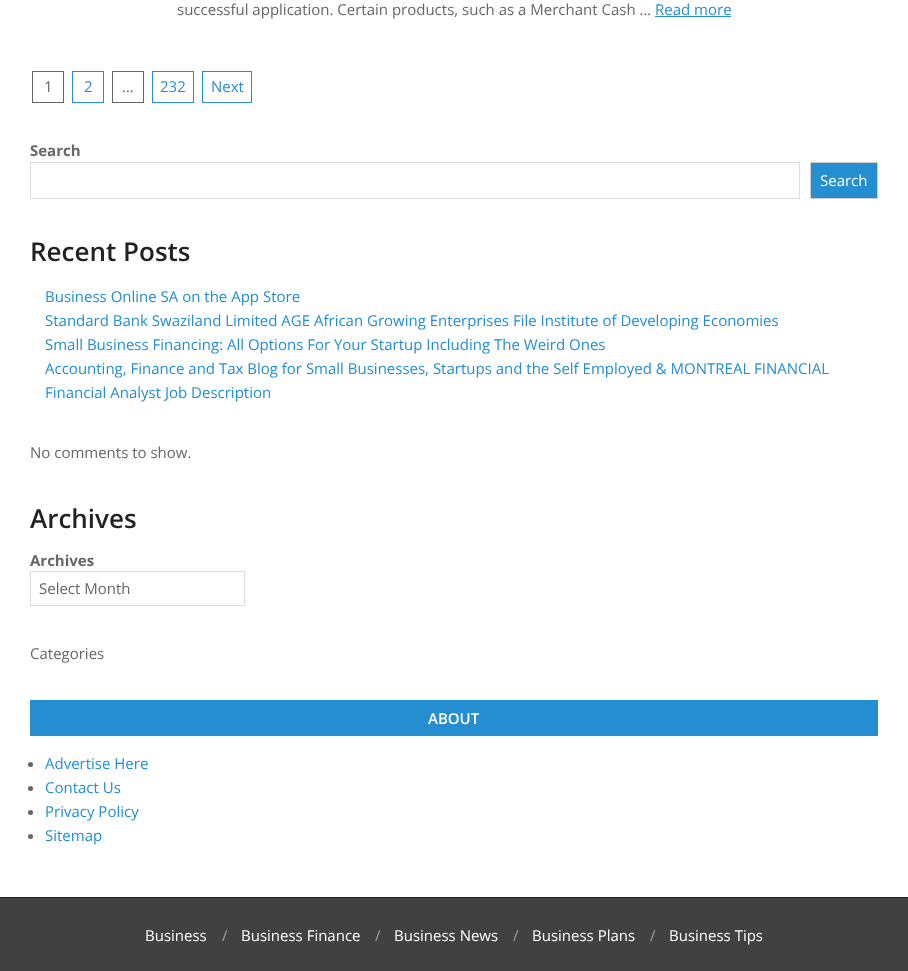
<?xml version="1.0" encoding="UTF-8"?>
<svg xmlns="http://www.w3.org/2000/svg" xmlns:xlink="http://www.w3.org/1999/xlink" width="908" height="971">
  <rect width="100%" height="100%" fill="#ffffff" />
  <rect x="655" y="16" width="76" height="1" fill="#248ed0" />
  <rect x="32.5" y="71.5" width="31" height="31" fill="none" stroke="#666666" />
  <rect x="72.5" y="71.5" width="31" height="31" fill="none" stroke="#248ed0" />
  <rect x="112.5" y="71.5" width="31" height="31" fill="none" stroke="#666666" />
  <rect x="152.5" y="71.5" width="41" height="31" fill="none" stroke="#248ed0" />
  <rect x="202.5" y="71.5" width="49" height="31" fill="none" stroke="#248ed0" />
  <rect x="30.5" y="162.5" width="769" height="36" fill="none" stroke="#dddddd" />
  <rect x="810.5" y="162.5" width="67" height="36" fill="#248ed0" stroke="#cccccc" />
  <rect x="30.5" y="571.5" width="214" height="34" fill="none" stroke="#dddddd" />
  <rect x="30" y="700" width="848" height="36" fill="#248ed0" />
  <circle cx="30.5" cy="764.5" r="2.5" fill="#666666" />
  <circle cx="30.5" cy="788.5" r="2.5" fill="#666666" />
  <circle cx="30.5" cy="812.5" r="2.5" fill="#666666" />
  <circle cx="30.5" cy="836.5" r="2.5" fill="#666666" />
  <rect y="897" width="908" height="1" fill="#222222" />
  <rect y="898" width="908" height="73" fill="#414141" />
  <text x="177" y="15" style="font-family: Open Sans; font-size: 15px; fill: #666666">successful application. Certain products, such as a Merchant Cash …</text>
  <text x="655" y="15" style="font-family: Open Sans; font-size: 15px; fill: #248ed0">Read more</text>
  <text x="44" y="92" style="font-family: Open Sans; font-size: 15px; fill: #666666">1</text>
  <text x="84" y="92" style="font-family: Open Sans; font-size: 15px; fill: #248ed0">2</text>
  <text x="122" y="92" style="font-family: Open Sans; font-size: 15px; fill: #666666">…</text>
  <text x="160" y="92" style="font-family: Open Sans; font-size: 15px; fill: #248ed0">232</text>
  <text x="211" y="92" style="font-family: Open Sans; font-size: 15px; fill: #248ed0">Next</text>
  <text x="30" y="156" style="font-family: Open Sans; font-size: 15px; font-weight: bold; fill: #666666">Search</text>
  <text x="820" y="186" style="font-family: Open Sans; font-size: 15px; fill: #ffffff">Search</text>
  <text x="30" y="261" style="font-family: Open Sans; font-size: 26px; font-weight: 600; fill: #222222">Recent Posts</text>
  <text x="45" y="302" style="font-family: Open Sans; font-size: 15px; fill: #248ed0">Business Online SA on the App Store</text>
  <text x="45" y="326" style="font-family: Open Sans; font-size: 15px; fill: #248ed0">Standard Bank Swaziland Limited AGE African Growing Enterprises File Institute of Developing Economies</text>
  <text x="45" y="350" style="font-family: Open Sans; font-size: 15px; fill: #248ed0">Small Business Financing: All Options For Your Startup Including The Weird Ones</text>
  <text x="45" y="374" style="font-family: Open Sans; font-size: 15px; fill: #248ed0">Accounting, Finance and Tax Blog for Small Businesses, Startups and the Self Employed &amp; MONTREAL FINANCIAL</text>
  <text x="45" y="398" style="font-family: Open Sans; font-size: 15px; fill: #248ed0">Financial Analyst Job Description</text>
  <text x="30" y="458" style="font-family: Open Sans; font-size: 15px; fill: #666666">No comments to show.</text>
  <text x="30" y="528" style="font-family: Open Sans; font-size: 26px; font-weight: 600; fill: #222222">Archives</text>
  <text x="30" y="566" style="font-family: Open Sans; font-size: 15px; font-weight: bold; fill: #666666">Archives</text>
  <text x="39" y="594" style="font-family: Open Sans; font-size: 15px; fill: #666666">Select Month</text>
  <text x="30" y="659" style="font-family: Open Sans; font-size: 15px; fill: #666666">Categories</text>
  <text x="428" y="724" style="font-family: Open Sans; font-size: 15px; font-weight: 600; fill: #ffffff">ABOUT</text>
  <text x="45" y="769" style="font-family: Open Sans; font-size: 15px; fill: #248ed0">Advertise Here</text>
  <text x="45" y="793" style="font-family: Open Sans; font-size: 15px; fill: #248ed0">Contact Us</text>
  <text x="45" y="817" style="font-family: Open Sans; font-size: 15px; fill: #248ed0">Privacy Policy</text>
  <text x="45" y="841" style="font-family: Open Sans; font-size: 15px; fill: #248ed0">Sitemap</text>
  <text x="145" y="941" style="font-family: Open Sans; font-size: 15px; fill: #ffffff">Business</text>
  <text x="222" y="941" style="font-family: Open Sans; font-size: 15px; fill: #a0a0a0">/</text>
  <text x="241" y="941" style="font-family: Open Sans; font-size: 15px; fill: #ffffff">Business Finance</text>
  <text x="375" y="941" style="font-family: Open Sans; font-size: 15px; fill: #a0a0a0">/</text>
  <text x="394" y="941" style="font-family: Open Sans; font-size: 15px; fill: #ffffff">Business News</text>
  <text x="513" y="941" style="font-family: Open Sans; font-size: 15px; fill: #a0a0a0">/</text>
  <text x="532" y="941" style="font-family: Open Sans; font-size: 15px; fill: #ffffff">Business Plans</text>
  <text x="650" y="941" style="font-family: Open Sans; font-size: 15px; fill: #a0a0a0">/</text>
  <text x="669" y="941" style="font-family: Open Sans; font-size: 15px; fill: #ffffff">Business Tips</text>
</svg>
